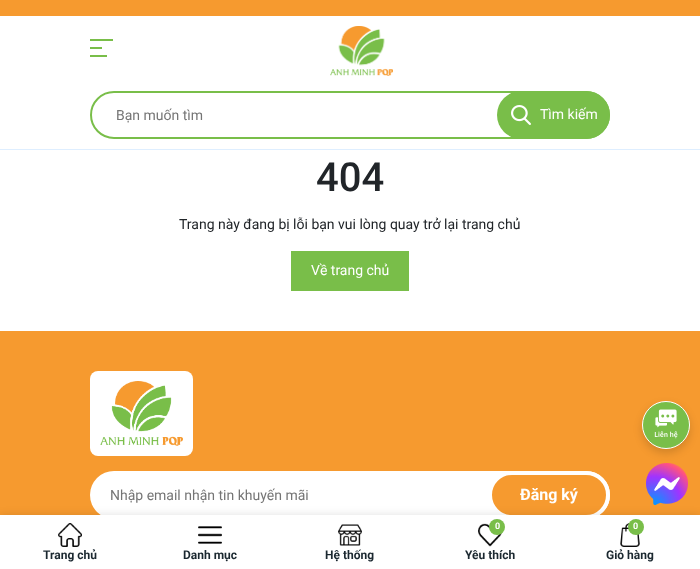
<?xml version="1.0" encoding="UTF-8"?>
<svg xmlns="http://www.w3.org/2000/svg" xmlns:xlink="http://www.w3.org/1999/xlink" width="700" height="569">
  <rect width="100%" height="100%" fill="#ffffff" />
  <rect width="700" height="16" fill="#f69a2f" />
  <rect x="90" y="39" width="23" height="2" fill="#79be49" />
  <rect x="90" y="47" width="12" height="2" fill="#79be49" />
  <rect x="90" y="55" width="17" height="2" fill="#79be49" />
  <image x="330" y="26" width="63" height="50" xlink:href="image1.png" />
  <rect x="91" y="92" width="518" height="46" rx="23" fill="none" stroke="#79be49" stroke-width="2" />
  <rect x="497" y="91" width="113" height="48" rx="24" fill="#79be49" />
  <image x="511" y="105" width="20" height="20" xlink:href="image2.png" />
  <rect y="149" width="700" height="1" fill="#deeeff" />
  <rect x="291" y="251" width="118" height="40" fill="#79be49" />
  <rect y="331" width="700" height="184" fill="#f69a2f" />
  <rect x="90" y="371" width="103" height="85" rx="8" fill="#ffffff" />
  <image x="100" y="381" width="83" height="65" xlink:href="image3.png" />
  <rect x="90" y="471" width="520" height="48" rx="24" fill="#ffffff" />
  <rect x="490" y="473" width="118" height="44" rx="22" fill="#f69a2f" stroke="#ffffff" stroke-width="4" />
  <rect y="515" width="700" height="54" fill="#000000" fill-opacity="0.12" filter="blur(4.5px)" />
  <rect y="515" width="700" height="54" fill="#ffffff" />
  <image x="58" y="523" width="24" height="24" xlink:href="image4.png" />
  <image x="198" y="526" width="24" height="18" xlink:href="image5.png" />
  <image x="338" y="524" width="24" height="22" xlink:href="image6.png" />
  <image x="478" y="523" width="24" height="24" xlink:href="image7.png" />
  <circle cx="497" cy="527" r="8" fill="#79be49" />
  <image x="620" y="523" width="20" height="24" xlink:href="image8.png" />
  <circle cx="636" cy="527" r="8" fill="#79be49" />
  <rect x="642" y="405" width="48" height="48" rx="24" fill="#000000" fill-opacity="0.15" filter="blur(4px)" />
  <circle cx="666" cy="425" r="23.5" fill="#79be49" stroke="#ffffff" />
  <image x="654" y="409" width="24" height="30" xlink:href="image9.png" />
  <image x="646" y="463" width="42" height="42" xlink:href="image10.png" />
  <text x="116" y="120" style="font-family: Roboto; font-size: 14px; fill: #757575">Bạn muốn tìm</text>
  <text x="540" y="119" style="font-family: Roboto; font-size: 14px; fill: #ffffff">Tìm kiếm</text>
  <text x="316" y="191" style="font-family: Roboto; font-size: 40px; font-weight: 500; fill: #212529">404</text>
  <text x="179" y="229" style="font-family: Roboto; font-size: 14px; fill: #212529">Trang này đang bị lỗi bạn vui lòng quay trở lại trang chủ</text>
  <text x="311" y="275" style="font-family: Roboto; font-size: 14px; fill: #ffffff">Về trang chủ</text>
  <text x="110" y="500" style="font-family: Roboto; font-size: 14px; fill: #757575">Nhập email nhận tin khuyến mãi</text>
  <text x="520" y="500" style="font-family: Roboto; font-size: 16px; font-weight: bold; fill: #ffffff">Đăng ký</text>
  <text x="43" y="559" style="font-family: Roboto; font-size: 12px; font-weight: bold; fill: #1b2830">Trang chủ</text>
  <text x="183" y="559" style="font-family: Roboto; font-size: 12px; font-weight: bold; fill: #1b2830">Danh mục</text>
  <text x="325" y="559" style="font-family: Roboto; font-size: 12px; font-weight: bold; fill: #1b2830">Hệ thống</text>
  <text x="495" y="529" style="font-family: Roboto; font-size: 9px; font-weight: bold; fill: #ffffff">0</text>
  <text x="465" y="559" style="font-family: Roboto; font-size: 12px; font-weight: bold; fill: #1b2830">Yêu thích</text>
  <text x="633" y="529" style="font-family: Roboto; font-size: 9px; font-weight: bold; fill: #ffffff">0</text>
  <text x="606" y="559" style="font-family: Roboto; font-size: 12px; font-weight: bold; fill: #1b2830">Giỏ hàng</text>
</svg>
